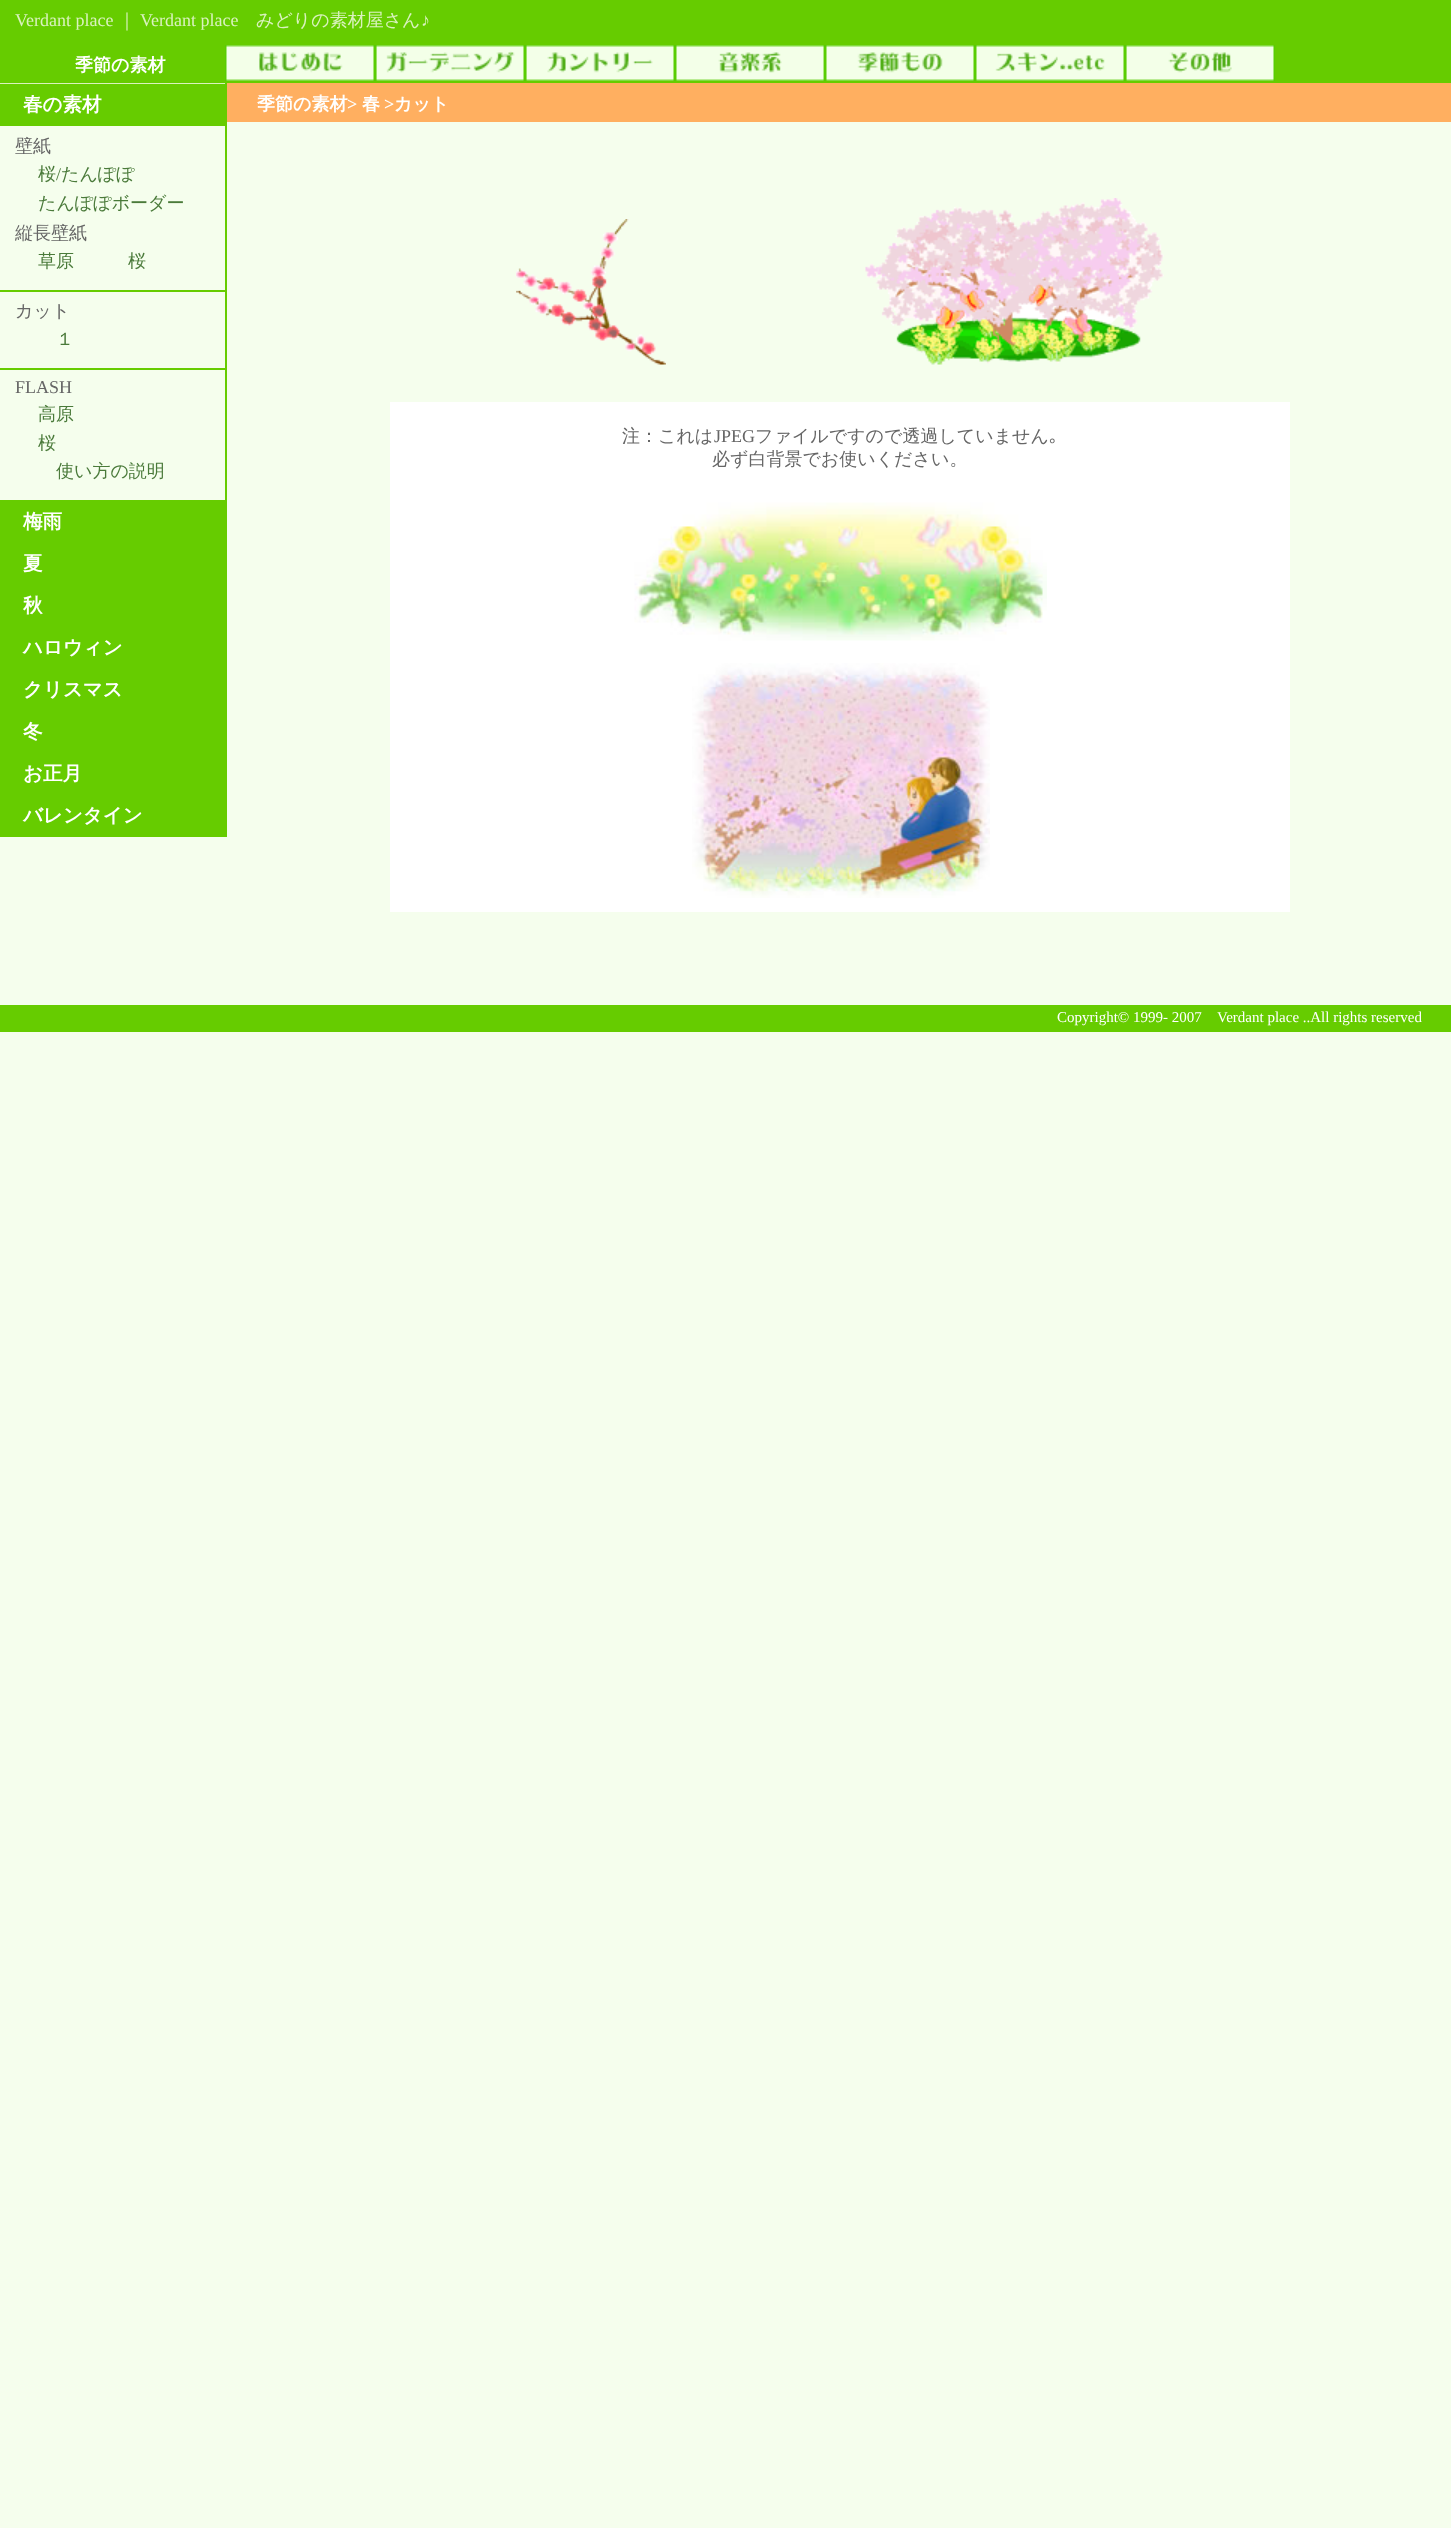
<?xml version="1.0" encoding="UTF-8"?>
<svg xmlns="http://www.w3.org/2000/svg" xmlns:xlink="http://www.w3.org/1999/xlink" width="1451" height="2528">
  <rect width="100%" height="100%" fill="#f5feed" />
  <rect width="1451" height="83" fill="#66cc00" />
  <image x="225" y="45" width="150" height="36" xlink:href="image1.png" />
  <image x="375" y="45" width="150" height="36" xlink:href="image2.png" />
  <image x="525" y="45" width="150" height="36" xlink:href="image3.png" />
  <image x="675" y="45" width="150" height="36" xlink:href="image4.png" />
  <image x="825" y="45" width="150" height="36" xlink:href="image5.png" />
  <image x="975" y="45" width="150" height="36" xlink:href="image6.png" />
  <image x="1125" y="45" width="150" height="36" xlink:href="image7.png" />
  <rect y="83" width="227" height="1" fill="#daf2bf" />
  <rect x="225" y="83" width="2" height="754" fill="#66cc00" />
  <rect y="84" width="225" height="42" fill="#66cc00" />
  <rect y="290" width="225" height="2" fill="#66cc00" />
  <rect y="368" width="225" height="2" fill="#66cc00" />
  <rect y="500" width="225" height="337" fill="#66cc00" />
  <rect x="227" y="83" width="1224" height="39" fill="#ffaf60" />
  <image x="516" y="219" width="150" height="146" xlink:href="image8.png" />
  <image x="865" y="198" width="299" height="167" xlink:href="image9.png" />
  <rect x="390" y="402" width="900" height="510" fill="#ffffff" />
  <image x="634" y="502" width="413" height="139" xlink:href="image10.png" />
  <image x="692" y="663" width="298" height="235" xlink:href="image11.png" />
  <rect y="1005" width="1451" height="27" fill="#66cc00" />
  <text x="15" y="26" style="font-family: Liberation Serif; font-size: 18px; fill: #daf2bf">Verdant place</text>
  <text x="118" y="26" style="font-family: WenQuanYi Zen Hei; font-size: 18px; font-weight: 500; fill: #daf2bf">｜</text>
  <text x="140" y="26" style="font-family: Liberation Serif; font-size: 18px; fill: #daf2bf">Verdant place</text>
  <text x="256" y="26" style="font-family: WenQuanYi Zen Hei; font-size: 18px; font-weight: 500; fill: #daf2bf">みどりの素材屋さん</text>
  <text x="421" y="26" style="font-family: Liberation Serif; font-size: 18px; fill: #daf2bf">♪</text>
  <text x="75" y="71" style="font-family: WenQuanYi Zen Hei; font-size: 18px; font-weight: bold; fill: #ffffff">季節の素材</text>
  <text x="23" y="111" style="font-family: WenQuanYi Zen Hei; font-size: 19.5px; font-weight: bold; fill: #ffffff">春の素材</text>
  <text x="15" y="152" style="font-family: WenQuanYi Zen Hei; font-size: 18px; font-weight: 500; fill: #666666">壁紙</text>
  <text x="38" y="180" style="font-family: WenQuanYi Zen Hei; font-size: 18px; font-weight: 500; fill: #4a7a3a">桜</text>
  <text x="56" y="180" style="font-family: Liberation Serif; font-size: 18px; fill: #4a7a3a">/</text>
  <text x="61" y="180" style="font-family: WenQuanYi Zen Hei; font-size: 18px; font-weight: 500; fill: #4a7a3a">たんぽぽ</text>
  <text x="38" y="209" style="font-family: WenQuanYi Zen Hei; font-size: 18px; font-weight: 500; fill: #4a7a3a">たんぽぽボーダー</text>
  <text x="15" y="239" style="font-family: WenQuanYi Zen Hei; font-size: 18px; font-weight: 500; fill: #666666">縦長壁紙</text>
  <text x="38" y="267" style="font-family: WenQuanYi Zen Hei; font-size: 18px; font-weight: 500; fill: #4a7a3a">草原</text>
  <text x="128" y="267" style="font-family: WenQuanYi Zen Hei; font-size: 18px; font-weight: 500; fill: #4a7a3a">桜</text>
  <text x="15" y="317" style="font-family: WenQuanYi Zen Hei; font-size: 18px; font-weight: 500; fill: #666666">カット</text>
  <text x="56" y="345" style="font-family: WenQuanYi Zen Hei; font-size: 18px; font-weight: 500; fill: #4a7a3a">１</text>
  <text x="15" y="393" style="font-family: Liberation Serif; font-size: 18px; fill: #666666">FLASH</text>
  <text x="38" y="420" style="font-family: WenQuanYi Zen Hei; font-size: 18px; font-weight: 500; fill: #4a7a3a">高原</text>
  <text x="38" y="449" style="font-family: WenQuanYi Zen Hei; font-size: 18px; font-weight: 500; fill: #4a7a3a">桜</text>
  <text x="56" y="477" style="font-family: WenQuanYi Zen Hei; font-size: 18px; font-weight: 500; fill: #4a7a3a">使い方の説明</text>
  <text x="23" y="528" style="font-family: WenQuanYi Zen Hei; font-size: 19.5px; font-weight: bold; fill: #ffffff">梅雨</text>
  <text x="23" y="570" style="font-family: WenQuanYi Zen Hei; font-size: 19.5px; font-weight: bold; fill: #ffffff">夏</text>
  <text x="23" y="612" style="font-family: WenQuanYi Zen Hei; font-size: 19.5px; font-weight: bold; fill: #ffffff">秋</text>
  <text x="23" y="654" style="font-family: WenQuanYi Zen Hei; font-size: 19.5px; font-weight: bold; fill: #ffffff">ハロウィン</text>
  <text x="23" y="696" style="font-family: WenQuanYi Zen Hei; font-size: 19.5px; font-weight: bold; fill: #ffffff">クリスマス</text>
  <text x="23" y="738" style="font-family: WenQuanYi Zen Hei; font-size: 19.5px; font-weight: bold; fill: #ffffff">冬</text>
  <text x="23" y="780" style="font-family: WenQuanYi Zen Hei; font-size: 19.5px; font-weight: bold; fill: #ffffff">お正月</text>
  <text x="23" y="822" style="font-family: WenQuanYi Zen Hei; font-size: 19.5px; font-weight: bold; fill: #ffffff">バレンタイン</text>
  <text x="257" y="110" style="font-family: WenQuanYi Zen Hei; font-size: 18px; font-weight: bold; fill: #ffffff">季節の素材</text>
  <text x="347" y="110" style="font-family: Liberation Serif; font-size: 18px; font-weight: bold; fill: #ffffff">&gt;</text>
  <text x="362" y="110" style="font-family: WenQuanYi Zen Hei; font-size: 18px; font-weight: bold; fill: #ffffff">春</text>
  <text x="384" y="110" style="font-family: Liberation Serif; font-size: 18px; font-weight: bold; fill: #ffffff">&gt;</text>
  <text x="394" y="110" style="font-family: WenQuanYi Zen Hei; font-size: 18px; font-weight: bold; fill: #ffffff">カット</text>
  <text x="622" y="442" style="font-family: WenQuanYi Zen Hei; font-size: 18px; font-weight: 500; fill: #666666">注：これは</text>
  <text x="714" y="442" style="font-family: Liberation Serif; font-size: 18px; fill: #666666">JPEG</text>
  <text x="755" y="442" style="font-family: WenQuanYi Zen Hei; font-size: 18px; font-weight: 500; fill: #666666">ファイルですので透過していません</text>
  <text x="1049" y="442" style="font-family: IPAGothic; font-size: 18px; fill: #666666">｡</text>
  <text x="712" y="465" style="font-family: WenQuanYi Zen Hei; font-size: 18px; font-weight: 500; fill: #666666">必ず白背景でお使いください。</text>
  <text x="1057" y="1022" style="font-family: Liberation Serif; font-size: 15px; fill: #ffffff">Copyright© 1999- 2007</text>
  <text x="1217" y="1022" style="font-family: Liberation Serif; font-size: 15px; fill: #ffffff">Verdant place ..All rights reserved</text>
</svg>
